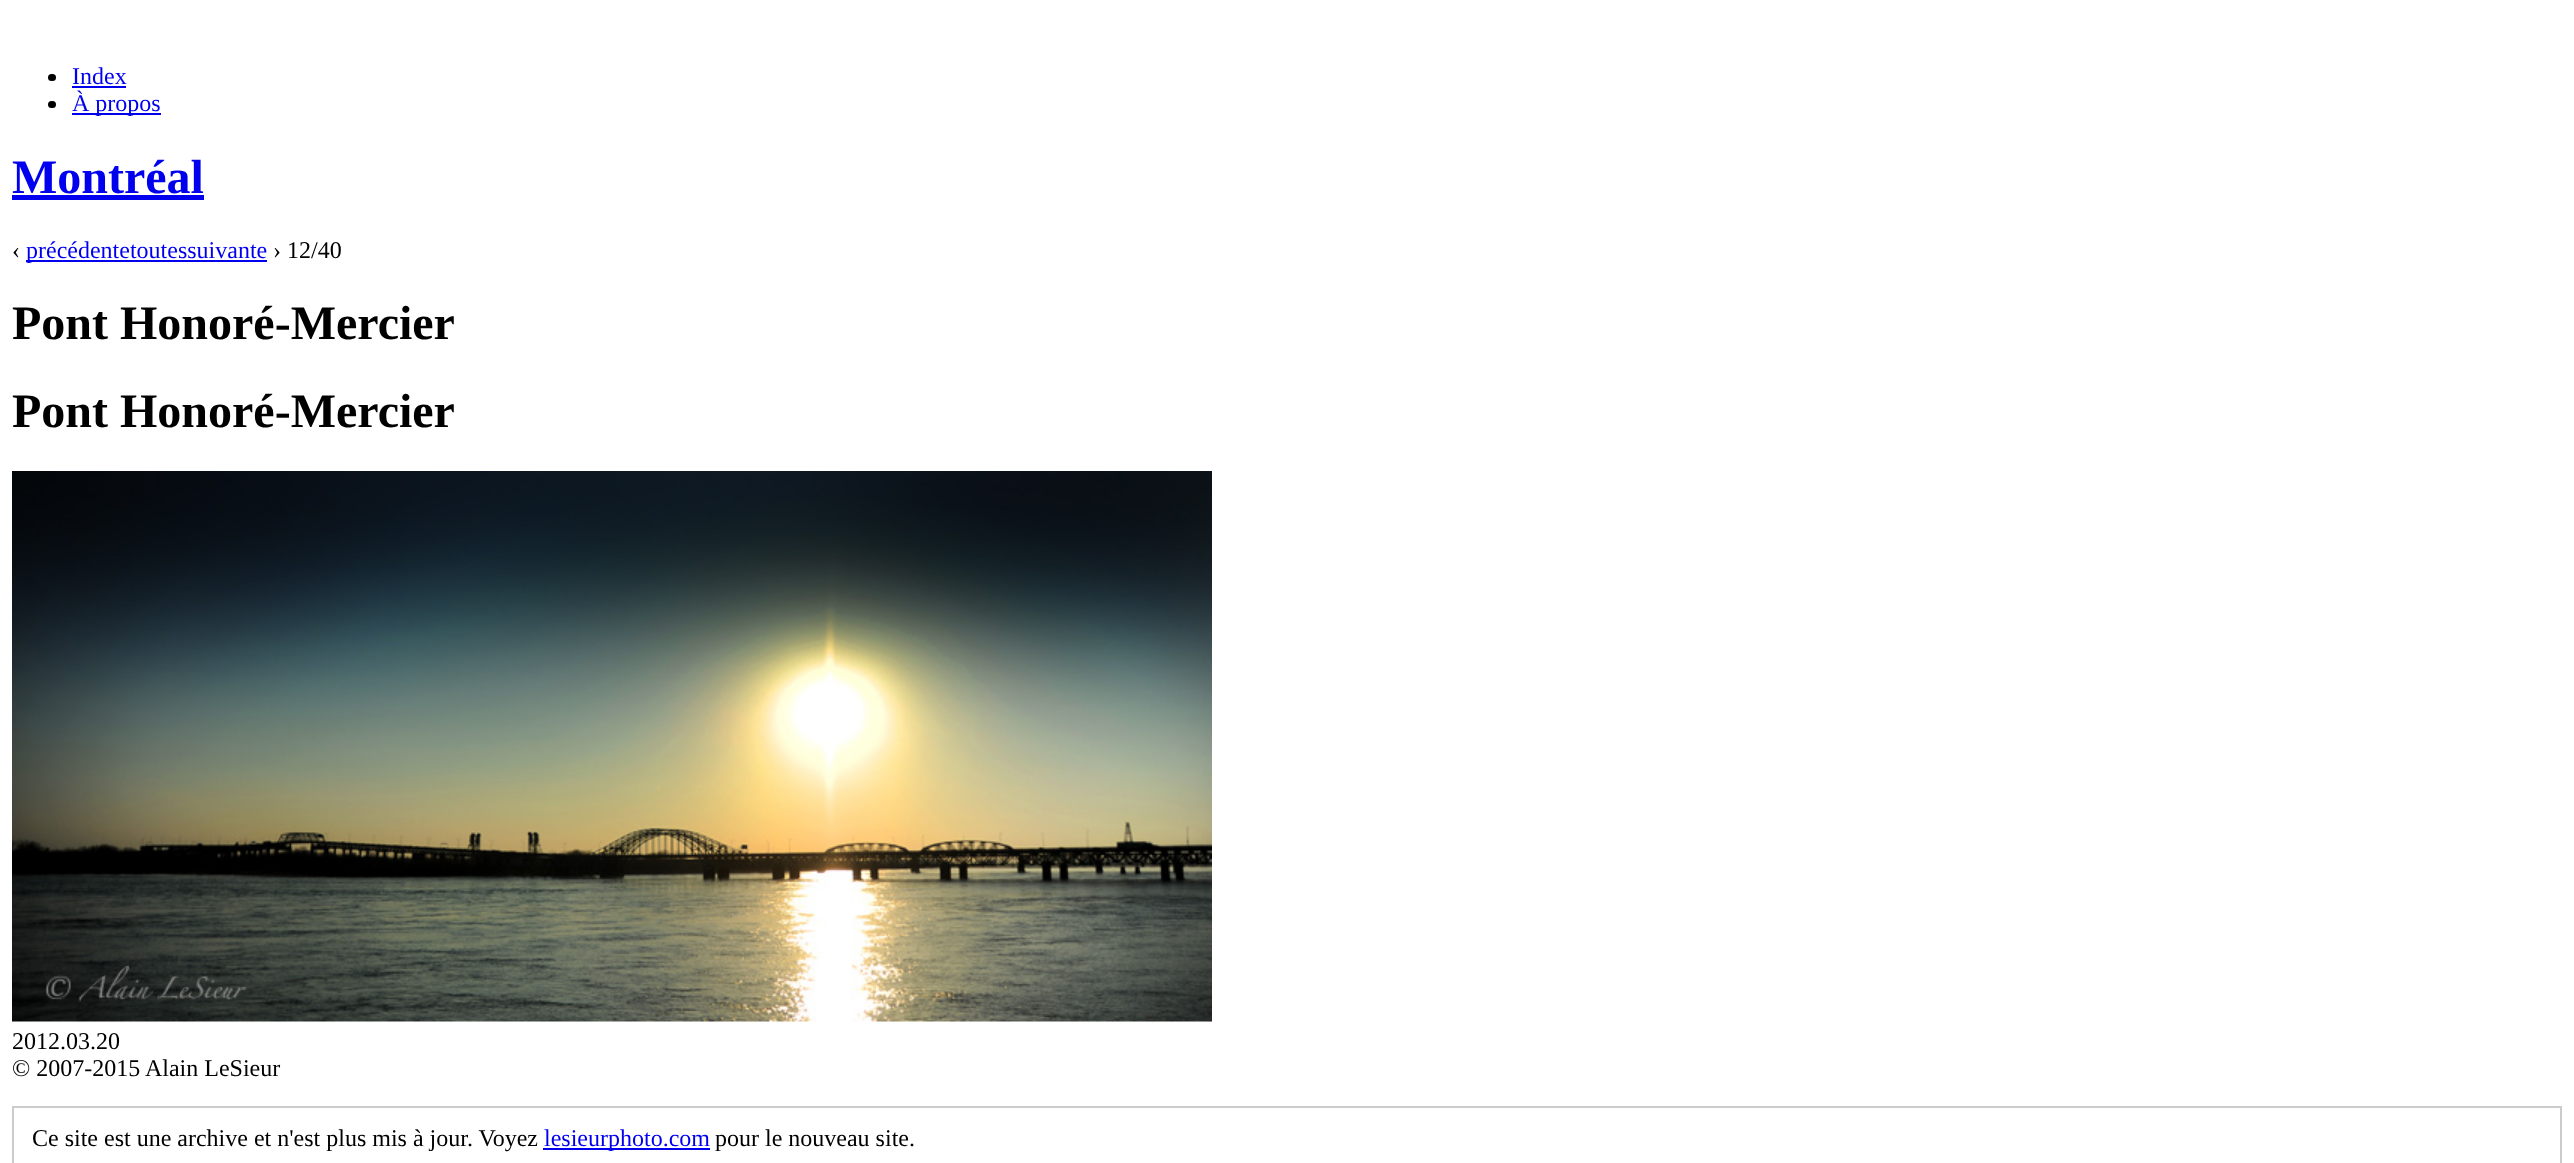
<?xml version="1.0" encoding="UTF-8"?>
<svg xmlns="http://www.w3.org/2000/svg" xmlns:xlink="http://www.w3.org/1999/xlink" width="2574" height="1163">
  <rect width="100%" height="100%" fill="#ffffff" />
  <rect x="48" y="74" width="8" height="7" rx="3.5" fill="#000000" />
  <rect x="72" y="86" width="54" height="2" fill="#0000ee" />
  <rect x="48" y="101" width="8" height="7" rx="3.5" fill="#000000" />
  <rect x="72" y="113" width="89" height="2" fill="#0000ee" />
  <rect x="12" y="195" width="192" height="5" fill="#0000ee" />
  <rect x="26" y="260" width="241" height="2" fill="#0000ee" />
  <image x="12" y="471" width="1200" height="551" xlink:href="image1.png" />
  <rect x="13" y="1107" width="2548" height="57" fill="none" stroke="#cccccc" stroke-width="2" />
  <rect x="543" y="1148" width="167" height="2" fill="#0000ee" />
  <text x="72" y="84" style="font-family: Liberation Serif; font-size: 24px; fill: #0000ee">Index</text>
  <text x="72" y="111" style="font-family: Liberation Serif; font-size: 24px; fill: #0000ee">À propos</text>
  <text x="12" y="193" style="font-family: Liberation Serif; font-size: 48px; font-weight: bold; fill: #0000ee">Montréal</text>
  <text x="12" y="258" style="font-family: Liberation Serif; font-size: 24px; fill: #000000">‹</text>
  <text x="26" y="258" style="font-family: Liberation Serif; font-size: 24px; fill: #0000ee">précédentetoutessuivante</text>
  <text x="273" y="258" style="font-family: Liberation Serif; font-size: 24px; fill: #000000">› 12/40</text>
  <text x="12" y="339" style="font-family: Liberation Serif; font-size: 48px; font-weight: bold; fill: #000000">Pont Honoré-Mercier</text>
  <text x="12" y="427" style="font-family: Liberation Serif; font-size: 48px; font-weight: bold; fill: #000000">Pont Honoré-Mercier</text>
  <text x="12" y="1049" style="font-family: Liberation Serif; font-size: 24px; fill: #000000">2012.03.20</text>
  <text x="12" y="1076" style="font-family: Liberation Serif; font-size: 24px; fill: #000000">© 2007-2015 Alain LeSieur</text>
  <text x="32" y="1146" style="font-family: Liberation Serif; font-size: 24px; fill: #000000">Ce site est une archive et n'est plus mis à jour. Voyez</text>
  <text x="544" y="1146" style="font-family: Liberation Serif; font-size: 24px; fill: #0000ee">lesieurphoto.com</text>
  <text x="715" y="1146" style="font-family: Liberation Serif; font-size: 24px; fill: #000000">pour le nouveau site.</text>
</svg>
